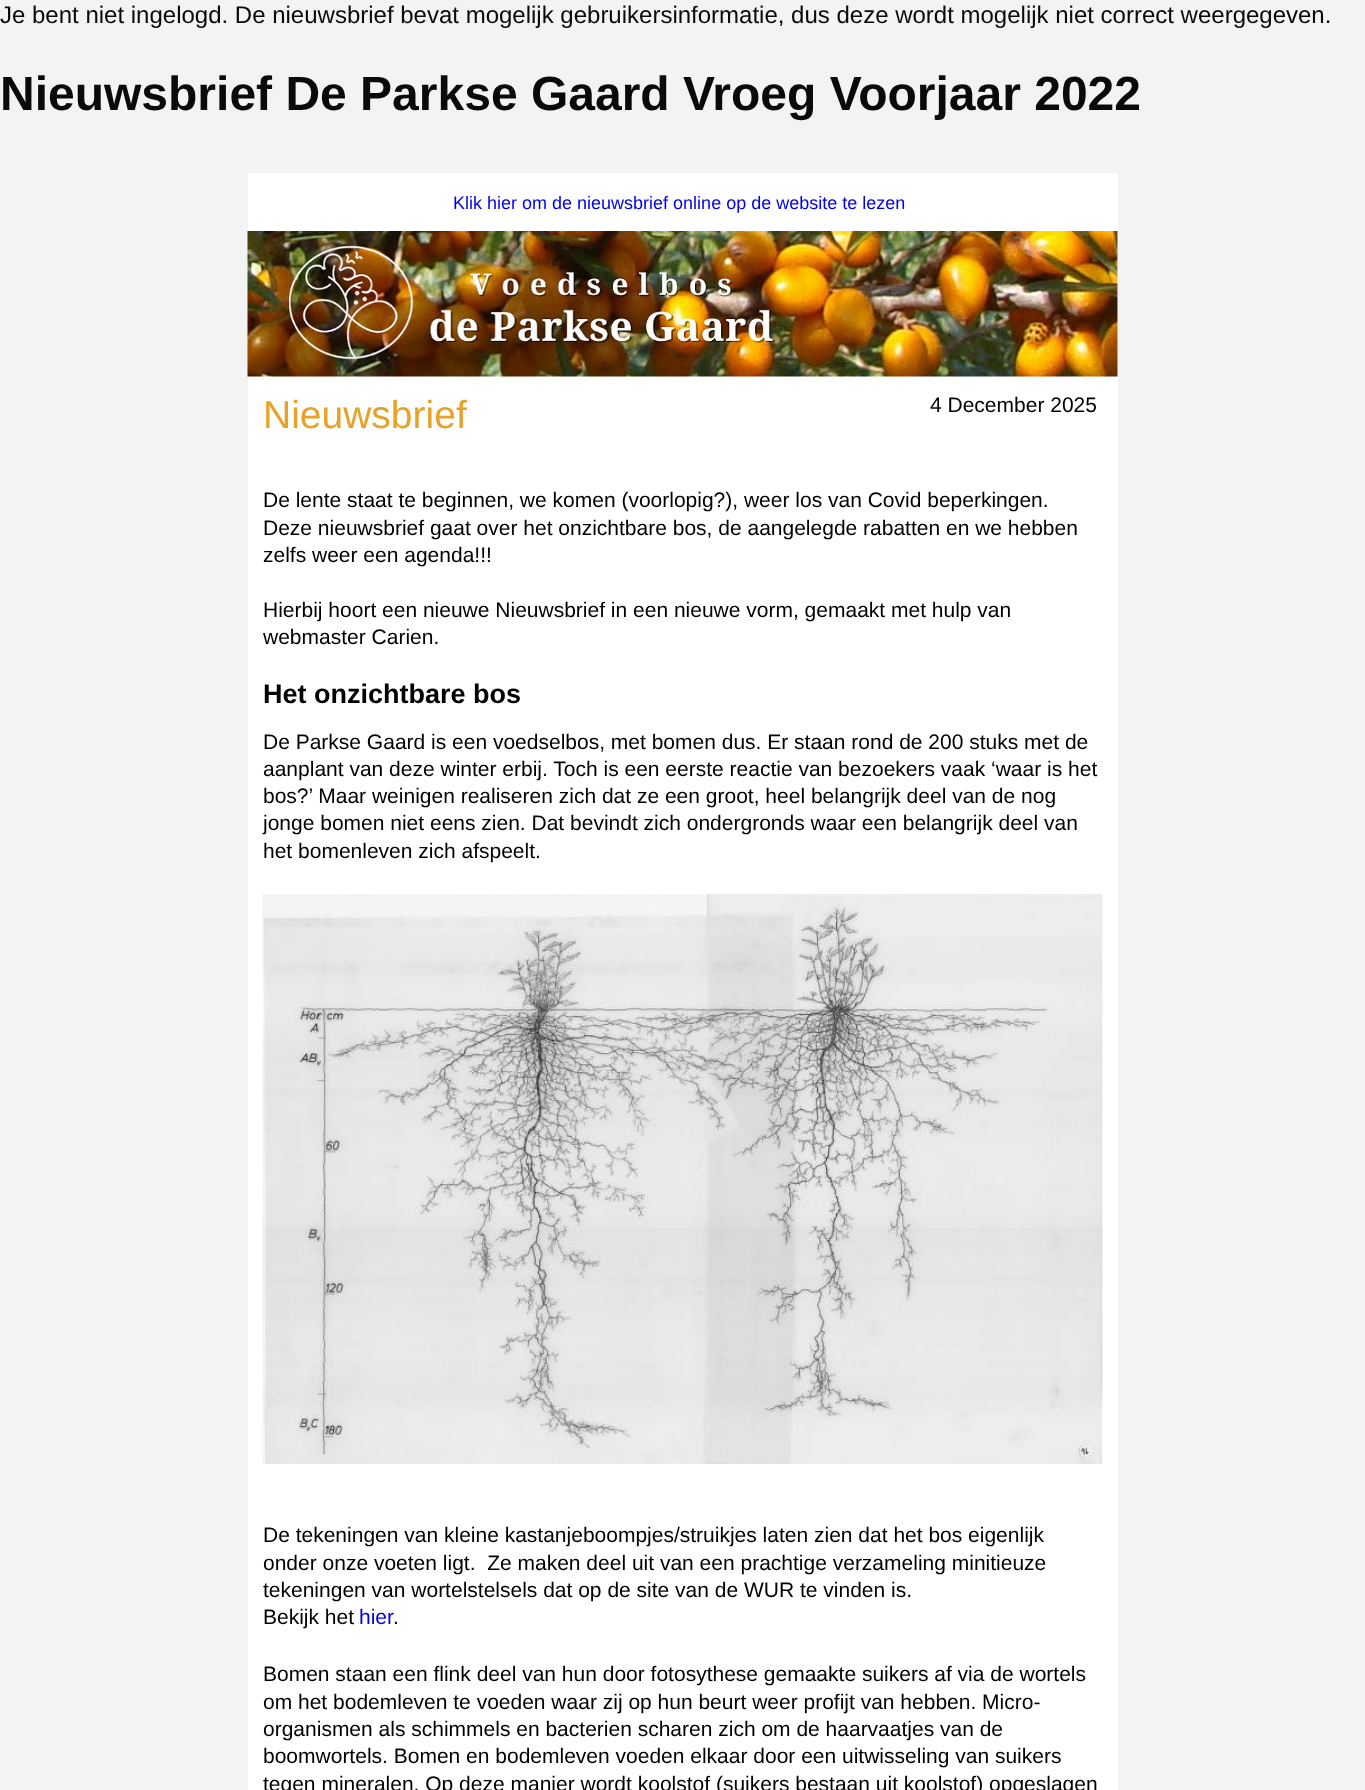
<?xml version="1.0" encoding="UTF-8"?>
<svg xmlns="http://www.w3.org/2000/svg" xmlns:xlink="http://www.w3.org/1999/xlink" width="1365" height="1790">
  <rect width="100%" height="100%" fill="#f3f3f3" />
  <rect x="248" y="173" width="870" height="1617" fill="#ffffff" />
  <image x="247" y="231" width="871" height="146" xlink:href="image1.png" />
  <image x="262" y="894" width="841" height="570" xlink:href="image2.png" />
  <text x="0" y="23" style="font-family: Liberation Sans; font-size: 24px; fill: #0a0a0a">Je bent niet ingelogd. De nieuwsbrief bevat mogelijk gebruikersinformatie, dus deze wordt mogelijk niet correct weergegeven.</text>
  <text x="0" y="110" style="font-family: Liberation Sans; font-size: 48px; font-weight: bold; fill: #0a0a0a">Nieuwsbrief De Parkse Gaard Vroeg Voorjaar 2022</text>
  <text x="453" y="209" style="font-family: Liberation Sans; font-size: 18px; fill: #0000f1">Klik hier om de nieuwsbrief online op de website te lezen</text>
  <text x="263" y="428" style="font-family: Liberation Sans; font-size: 39px; fill: #e8a22a">Nieuwsbrief</text>
  <text x="930" y="412" style="font-family: Liberation Sans; font-size: 21px; fill: #000000">‍4 December 2025</text>
  <text x="263" y="507" style="font-family: Liberation Sans; font-size: 21px; fill: #000000">De lente staat te beginnen, we komen (voorlopig?), weer los van Covid beperkingen.</text>
  <text x="263" y="535" style="font-family: Liberation Sans; font-size: 21px; fill: #000000">Deze nieuwsbrief gaat over het onzichtbare bos, de aangelegde rabatten en we hebben</text>
  <text x="263" y="562" style="font-family: Liberation Sans; font-size: 21px; fill: #000000">zelfs weer een agenda!!!</text>
  <text x="263" y="617" style="font-family: Liberation Sans; font-size: 21px; fill: #000000">Hierbij hoort een nieuwe Nieuwsbrief in een nieuwe vorm, gemaakt met hulp van</text>
  <text x="263" y="644" style="font-family: Liberation Sans; font-size: 21px; fill: #000000">webmaster Carien.</text>
  <text x="263" y="703" style="font-family: Liberation Sans; font-size: 27px; font-weight: bold; fill: #000000">Het onzichtbare bos</text>
  <text x="263" y="749" style="font-family: Liberation Sans; font-size: 21px; fill: #000000">De Parkse Gaard is een voedselbos, met bomen dus. Er staan rond de 200 stuks met de</text>
  <text x="263" y="776" style="font-family: Liberation Sans; font-size: 21px; fill: #000000">aanplant van deze winter erbij. Toch is een eerste reactie van bezoekers vaak ‘waar is het</text>
  <text x="263" y="803" style="font-family: Liberation Sans; font-size: 21px; fill: #000000">bos?’ Maar weinigen realiseren zich dat ze een groot, heel belangrijk deel van de nog</text>
  <text x="263" y="830" style="font-family: Liberation Sans; font-size: 21px; fill: #000000">jonge bomen niet eens zien. Dat bevindt zich ondergronds waar een belangrijk deel van</text>
  <text x="263" y="858" style="font-family: Liberation Sans; font-size: 21px; fill: #000000">het bomenleven zich afspeelt.</text>
  <text x="263" y="1542" style="font-family: Liberation Sans; font-size: 21px; fill: #000000">De tekeningen van kleine kastanjeboompjes/struikjes laten zien dat het bos eigenlijk</text>
  <text x="263" y="1570" style="font-family: Liberation Sans; font-size: 21px; fill: #000000" xml:space="preserve">onder onze voeten ligt.  Ze maken deel uit van een prachtige verzameling minitieuze</text>
  <text x="263" y="1597" style="font-family: Liberation Sans; font-size: 21px; fill: #000000">tekeningen van wortelstelsels dat op de site van de WUR te vinden is.</text>
  <text x="263" y="1624" style="font-family: Liberation Sans; font-size: 21px; fill: #000000">Bekijk het</text>
  <text x="359" y="1624" style="font-family: Liberation Sans; font-size: 21px; fill: #0000f1">hier</text>
  <text x="393" y="1624" style="font-family: Liberation Sans; font-size: 21px; fill: #000000">.</text>
  <text x="263" y="1681" style="font-family: Liberation Sans; font-size: 21px; fill: #000000">Bomen staan een flink deel van hun door fotosythese gemaakte suikers af via de wortels</text>
  <text x="263" y="1709" style="font-family: Liberation Sans; font-size: 21px; fill: #000000">om het bodemleven te voeden waar zij op hun beurt weer profijt van hebben. Micro-</text>
  <text x="263" y="1736" style="font-family: Liberation Sans; font-size: 21px; fill: #000000">organismen als schimmels en bacterien scharen zich om de haarvaatjes van de</text>
  <text x="263" y="1763" style="font-family: Liberation Sans; font-size: 21px; fill: #000000">boomwortels. Bomen en bodemleven voeden elkaar door een uitwisseling van suikers</text>
  <text x="263" y="1791" style="font-family: Liberation Sans; font-size: 21px; fill: #000000">tegen mineralen. Op deze manier wordt koolstof (suikers bestaan uit koolstof) opgeslagen</text>
</svg>
